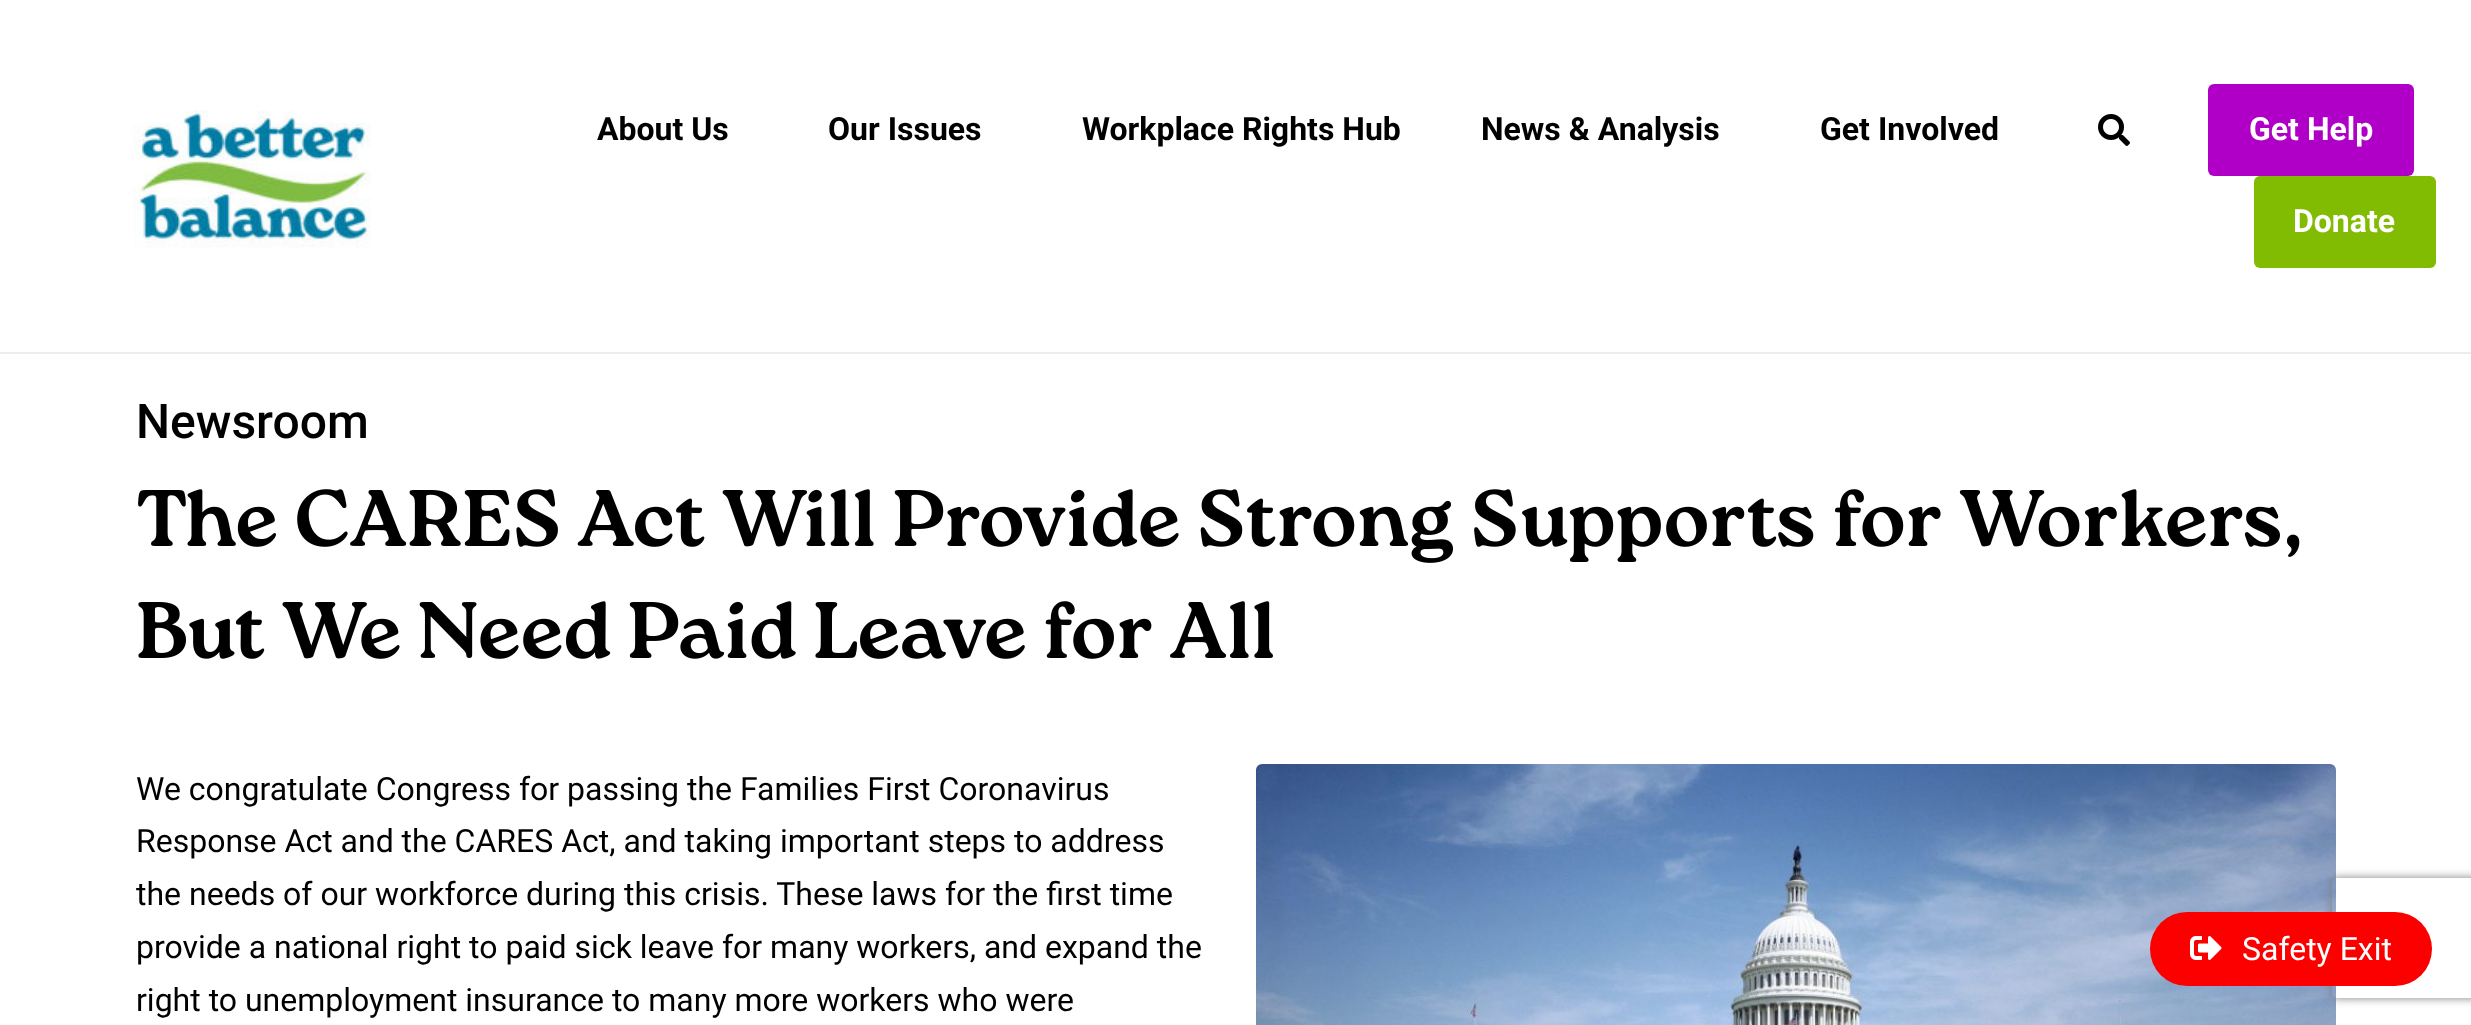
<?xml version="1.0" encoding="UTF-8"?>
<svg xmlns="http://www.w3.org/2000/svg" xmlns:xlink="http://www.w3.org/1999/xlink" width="2471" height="1025">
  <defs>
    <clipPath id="clip1"><path d="M 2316 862 h 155 v 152 h -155 z m 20 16 h 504 c 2 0 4 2 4 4 v 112 c 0 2 -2 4 -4 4 h -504 c -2 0 -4 -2 -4 -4 v -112 c 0 -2 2 -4 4 -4 z" clip-rule="evenodd" /></clipPath>
  </defs>
  <rect width="100%" height="100%" fill="#ffffff" />
  <rect y="352" width="2471" height="2" fill="#ededed" />
  <image x="133" y="110" width="238" height="138" xlink:href="image1.png" />
  <image x="2098" y="114" width="32" height="32" xlink:href="image2.png" />
  <rect x="2208" y="84" width="206" height="92" rx="6" fill="#b000c7" />
  <rect x="2254" y="176" width="182" height="92" rx="6" fill="#82bc02" />
  <image x="138" y="489" width="2162" height="74" xlink:href="image3.png" />
  <image x="138" y="601" width="1135" height="58" xlink:href="image4.png" />
  <image x="1256" y="764" width="1080" height="261" xlink:href="image5.png" />
  <g clip-path="url(#clip1)">
    <rect x="2332" y="878" width="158" height="120" rx="4" fill="#808080" filter="blur(5px)" />
  </g>
  <rect x="2150" y="912" width="282" height="74" rx="37" fill="#fc0000" />
  <image x="2190" y="936" width="32" height="24" xlink:href="image6.png" />
  <text x="597" y="140" style="font-family: Roboto; font-size: 32px; font-weight: bold; fill: #000000">About Us</text>
  <text x="828" y="140" style="font-family: Roboto; font-size: 32px; font-weight: bold; fill: #000000">Our Issues</text>
  <text x="1082" y="140" style="font-family: Roboto; font-size: 32px; font-weight: bold; fill: #000000">Workplace Rights Hub</text>
  <text x="1481" y="140" style="font-family: Roboto; font-size: 32px; font-weight: bold; fill: #000000">News &amp; Analysis</text>
  <text x="1820" y="140" style="font-family: Roboto; font-size: 32px; font-weight: bold; fill: #000000">Get Involved</text>
  <text x="2249" y="140" style="font-family: Roboto; font-size: 32px; font-weight: bold; fill: #ffffff">Get Help</text>
  <text x="2293" y="232" style="font-family: Roboto; font-size: 32px; font-weight: bold; fill: #ffffff">Donate</text>
  <text x="136" y="438" style="font-family: Roboto; font-size: 48px; font-weight: 500; fill: #000000">Newsroom</text>
  <text x="136" y="800" style="font-family: Roboto; font-size: 32px; fill: #000000">We congratulate Congress for passing the Families First Coronavirus</text>
  <text x="136" y="852" style="font-family: Roboto; font-size: 32px; fill: #000000">Response Act and the CARES Act, and taking important steps to address</text>
  <text x="136" y="905" style="font-family: Roboto; font-size: 32px; fill: #000000">the needs of our workforce during this crisis. These laws for the first time</text>
  <text x="136" y="958" style="font-family: Roboto; font-size: 32px; fill: #000000">provide a national right to paid sick leave for many workers, and expand the</text>
  <text x="136" y="1011" style="font-family: Roboto; font-size: 32px; fill: #000000">right to unemployment insurance to many more workers who were</text>
  <text x="2242" y="960" style="font-family: Roboto; font-size: 32px; fill: #ffffff">Safety Exit</text>
</svg>
